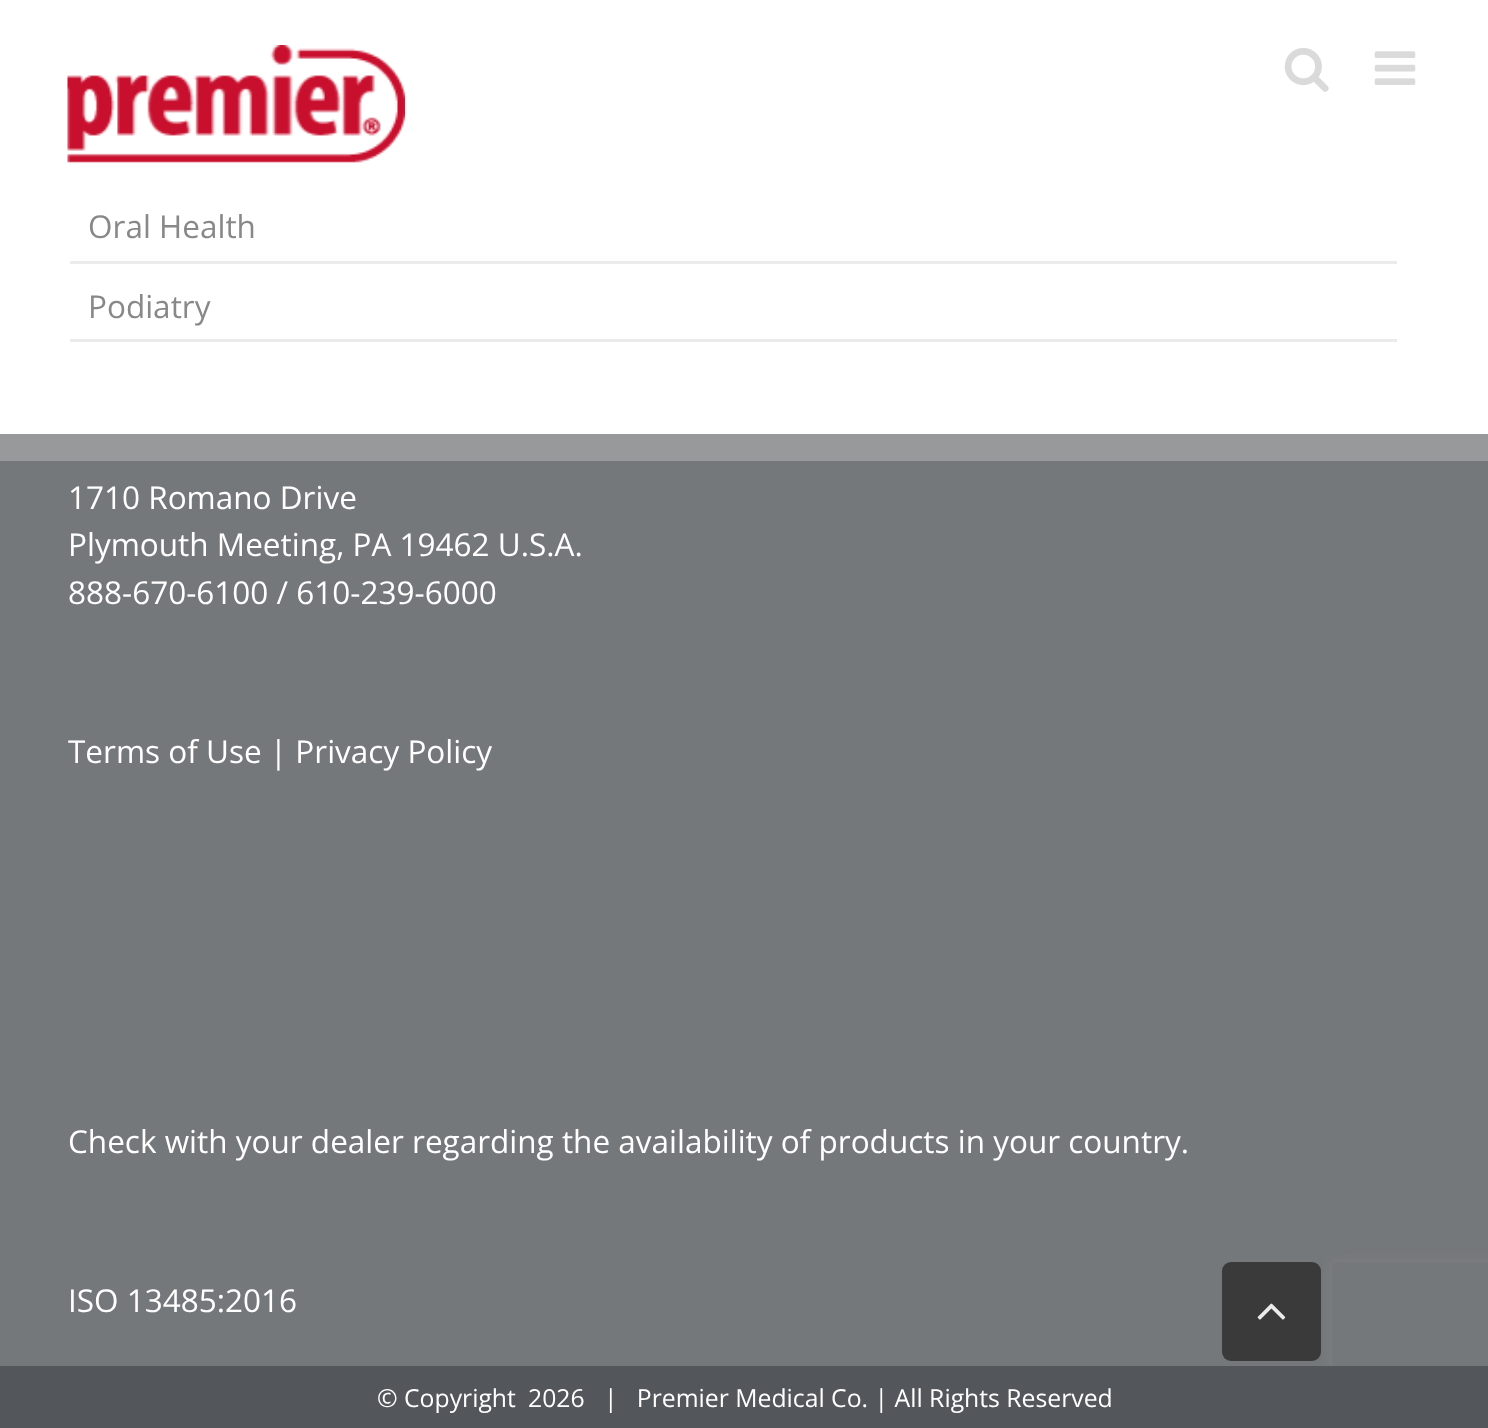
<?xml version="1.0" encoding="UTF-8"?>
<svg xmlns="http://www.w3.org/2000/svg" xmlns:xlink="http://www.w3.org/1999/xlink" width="1488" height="1428">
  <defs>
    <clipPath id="clip1"><path d="M 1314 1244 h 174 v 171 h -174 z m 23 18 h 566 c 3 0 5 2 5 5 v 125 c 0 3 -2 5 -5 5 h -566 c -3 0 -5 -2 -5 -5 v -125 c 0 -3 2 -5 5 -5 z" clip-rule="evenodd" /></clipPath>
  </defs>
  <rect width="100%" height="100%" fill="#ffffff" />
  <image x="67" y="45" width="338" height="118" xlink:href="image1.png" />
  <image x="1284" y="48" width="45" height="44" xlink:href="image2.png" />
  <image x="1374" y="51" width="42" height="34" xlink:href="image3.png" />
  <rect x="70" y="261" width="1327" height="3" fill="#ebebeb" />
  <rect x="70" y="339" width="1327" height="3" fill="#ebebeb" />
  <rect y="461" width="1488" height="905" fill="#75787b" />
  <rect y="434" width="1488" height="27" fill="#97999b" />
  <g clip-path="url(#clip1)">
    <rect x="1332" y="1262" width="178" height="135" rx="5" fill="#808080" filter="blur(5.5px)" />
  </g>
  <rect y="1366" width="1488" height="62" fill="#53565a" />
  <rect x="1222" y="1262" width="99" height="99" rx="9" fill="#3a3a3a" />
  <image x="1257" y="1303" width="29" height="17" xlink:href="image4.png" />
  <text x="88" y="238" style="font-family: Open Sans; font-size: 31.5px; fill: #888888">Oral Health</text>
  <text x="88" y="318" style="font-family: Open Sans; font-size: 31.5px; fill: #888888">Podiatry</text>
  <text x="68" y="509" style="font-family: Open Sans; font-size: 31.5px; fill: #ffffff">1710 Romano Drive</text>
  <text x="68" y="556" style="font-family: Open Sans; font-size: 31.5px; fill: #ffffff">Plymouth Meeting, PA 19462 U.S.A.</text>
  <text x="68" y="604" style="font-family: Open Sans; font-size: 31.5px; fill: #ffffff">888-670-6100 / 610-239-6000</text>
  <text x="68" y="763" style="font-family: Open Sans; font-size: 31.5px; fill: #ffffff">Terms of Use | Privacy Policy</text>
  <text x="68" y="1153" style="font-family: Open Sans; font-size: 31.5px; fill: #ffffff">Check with your dealer regarding the availability of products in your country.</text>
  <text x="68" y="1312" style="font-family: Open Sans; font-size: 31.5px; fill: #ffffff">ISO 13485:2016</text>
  <text x="377" y="1407" style="font-family: Open Sans; font-size: 24.75px; fill: #ffffff">© Copyright</text>
  <text x="528" y="1407" style="font-family: Open Sans; font-size: 24.75px; fill: #ffffff" xml:space="preserve">2026   |   Premier Medical Co. | All Rights Reserved</text>
</svg>
